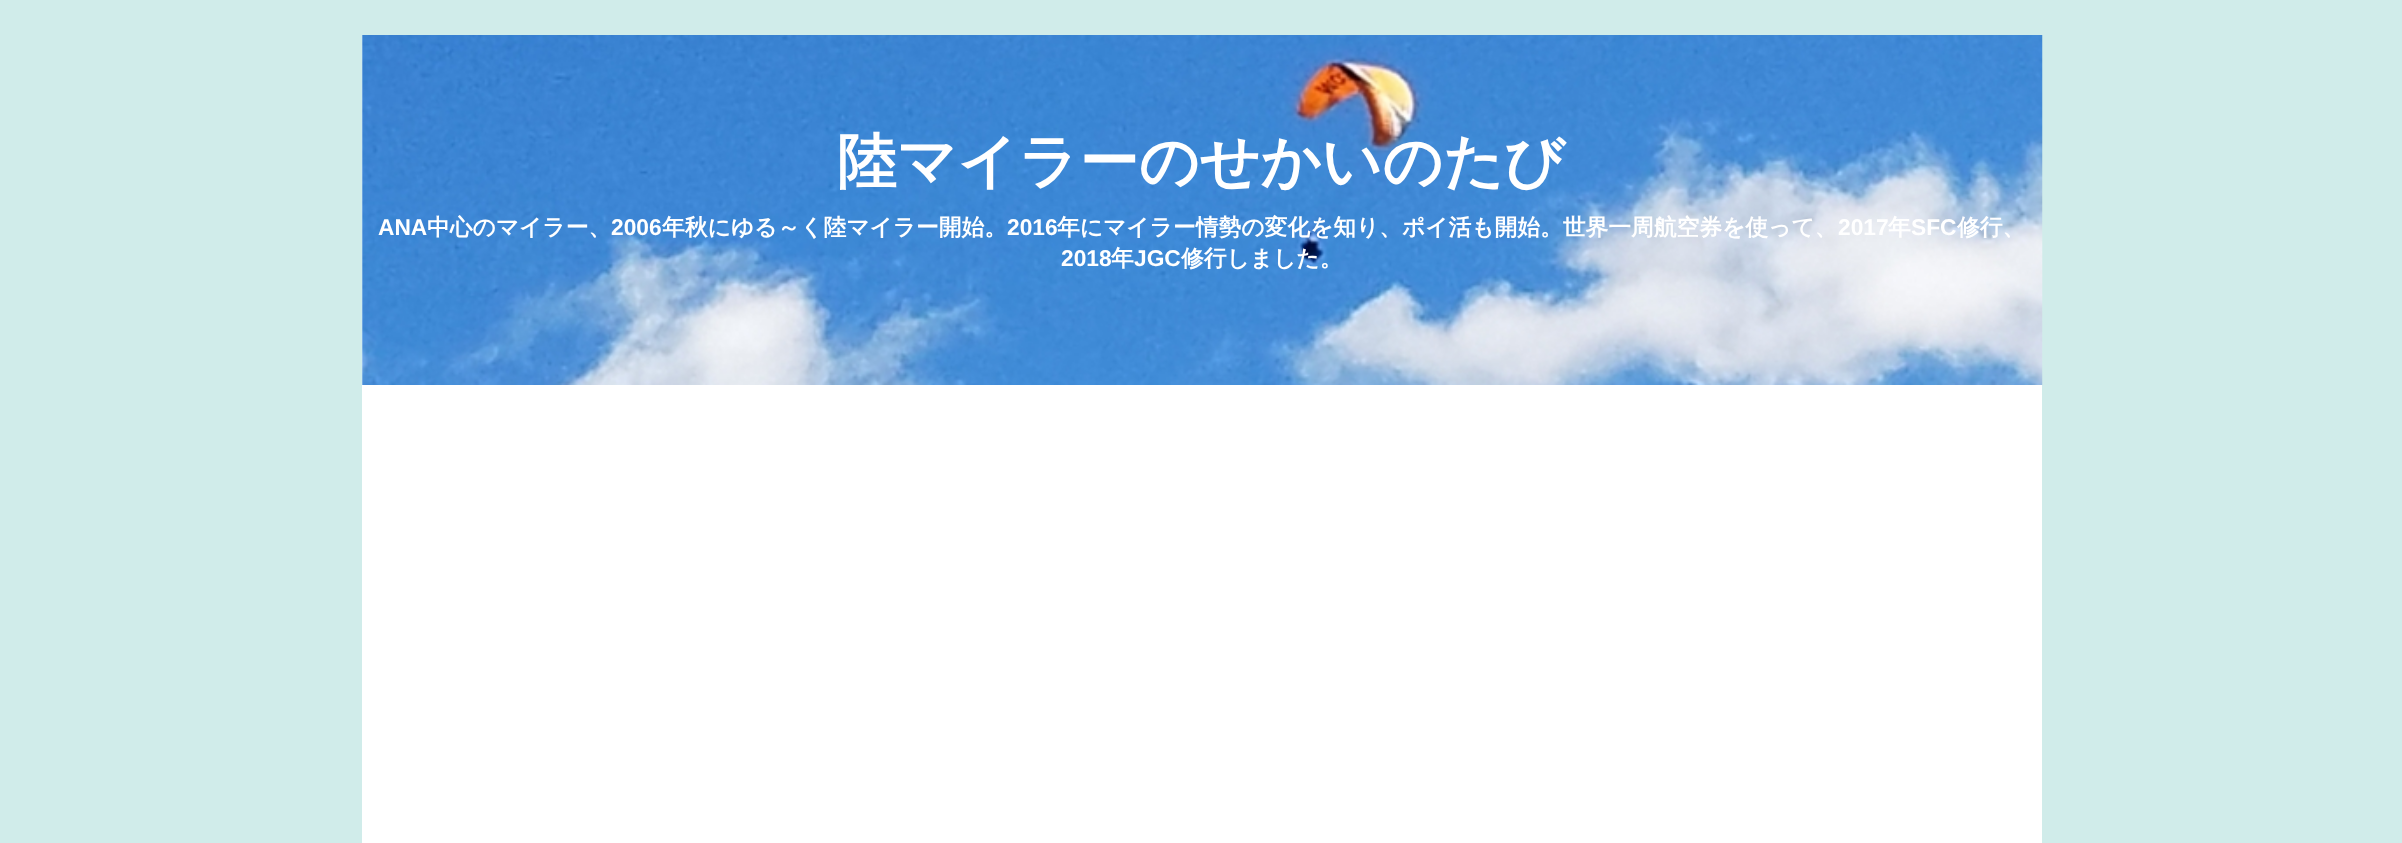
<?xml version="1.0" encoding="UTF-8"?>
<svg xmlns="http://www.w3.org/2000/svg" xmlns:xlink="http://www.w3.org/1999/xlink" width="2402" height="843">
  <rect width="100%" height="100%" fill="#d0ecea" />
  <rect x="362" y="35" width="1680" height="808" fill="#ffffff" />
  <image x="362" y="35" width="1681" height="350" xlink:href="image1.png" />
  <text x="837" y="182" style="font-family: WenQuanYi Zen Hei; font-size: 59.5px; font-weight: bold; fill: #ffffff">陸マイラーのせかいのたび</text>
  <text x="378" y="235" style="font-family: Liberation Sans; font-size: 22.75px; font-weight: bold; fill: #ffffff">ANA</text>
  <text x="427" y="235" style="font-family: WenQuanYi Zen Hei; font-size: 22.75px; font-weight: bold; fill: #ffffff">中心のマイラー、</text>
  <text x="611" y="235" style="font-family: Liberation Sans; font-size: 22.75px; font-weight: bold; fill: #ffffff">2006</text>
  <text x="662" y="235" style="font-family: WenQuanYi Zen Hei; font-size: 22.75px; font-weight: bold; fill: #ffffff">年秋にゆる～く陸マイラー開始。</text>
  <text x="1007" y="235" style="font-family: Liberation Sans; font-size: 22.75px; font-weight: bold; fill: #ffffff">2016</text>
  <text x="1057" y="235" style="font-family: WenQuanYi Zen Hei; font-size: 22.75px; font-weight: bold; fill: #ffffff">年にマイラー情勢の変化を知り、ポイ活も開始。世界一周航空券を使って、</text>
  <text x="1838" y="235" style="font-family: Liberation Sans; font-size: 22.75px; font-weight: bold; fill: #ffffff">2017</text>
  <text x="1888" y="235" style="font-family: WenQuanYi Zen Hei; font-size: 22.75px; font-weight: bold; fill: #ffffff">年</text>
  <text x="1911" y="235" style="font-family: Liberation Sans; font-size: 22.75px; font-weight: bold; fill: #ffffff">SFC</text>
  <text x="1957" y="235" style="font-family: WenQuanYi Zen Hei; font-size: 22.75px; font-weight: bold; fill: #ffffff">修行、</text>
  <text x="1061" y="266" style="font-family: Liberation Sans; font-size: 22.75px; font-weight: bold; fill: #ffffff">2018</text>
  <text x="1111" y="266" style="font-family: WenQuanYi Zen Hei; font-size: 22.75px; font-weight: bold; fill: #ffffff">年</text>
  <text x="1134" y="266" style="font-family: Liberation Sans; font-size: 22.75px; font-weight: bold; fill: #ffffff">JGC</text>
  <text x="1181" y="266" style="font-family: WenQuanYi Zen Hei; font-size: 22.75px; font-weight: bold; fill: #ffffff">修行しました。</text>
</svg>
